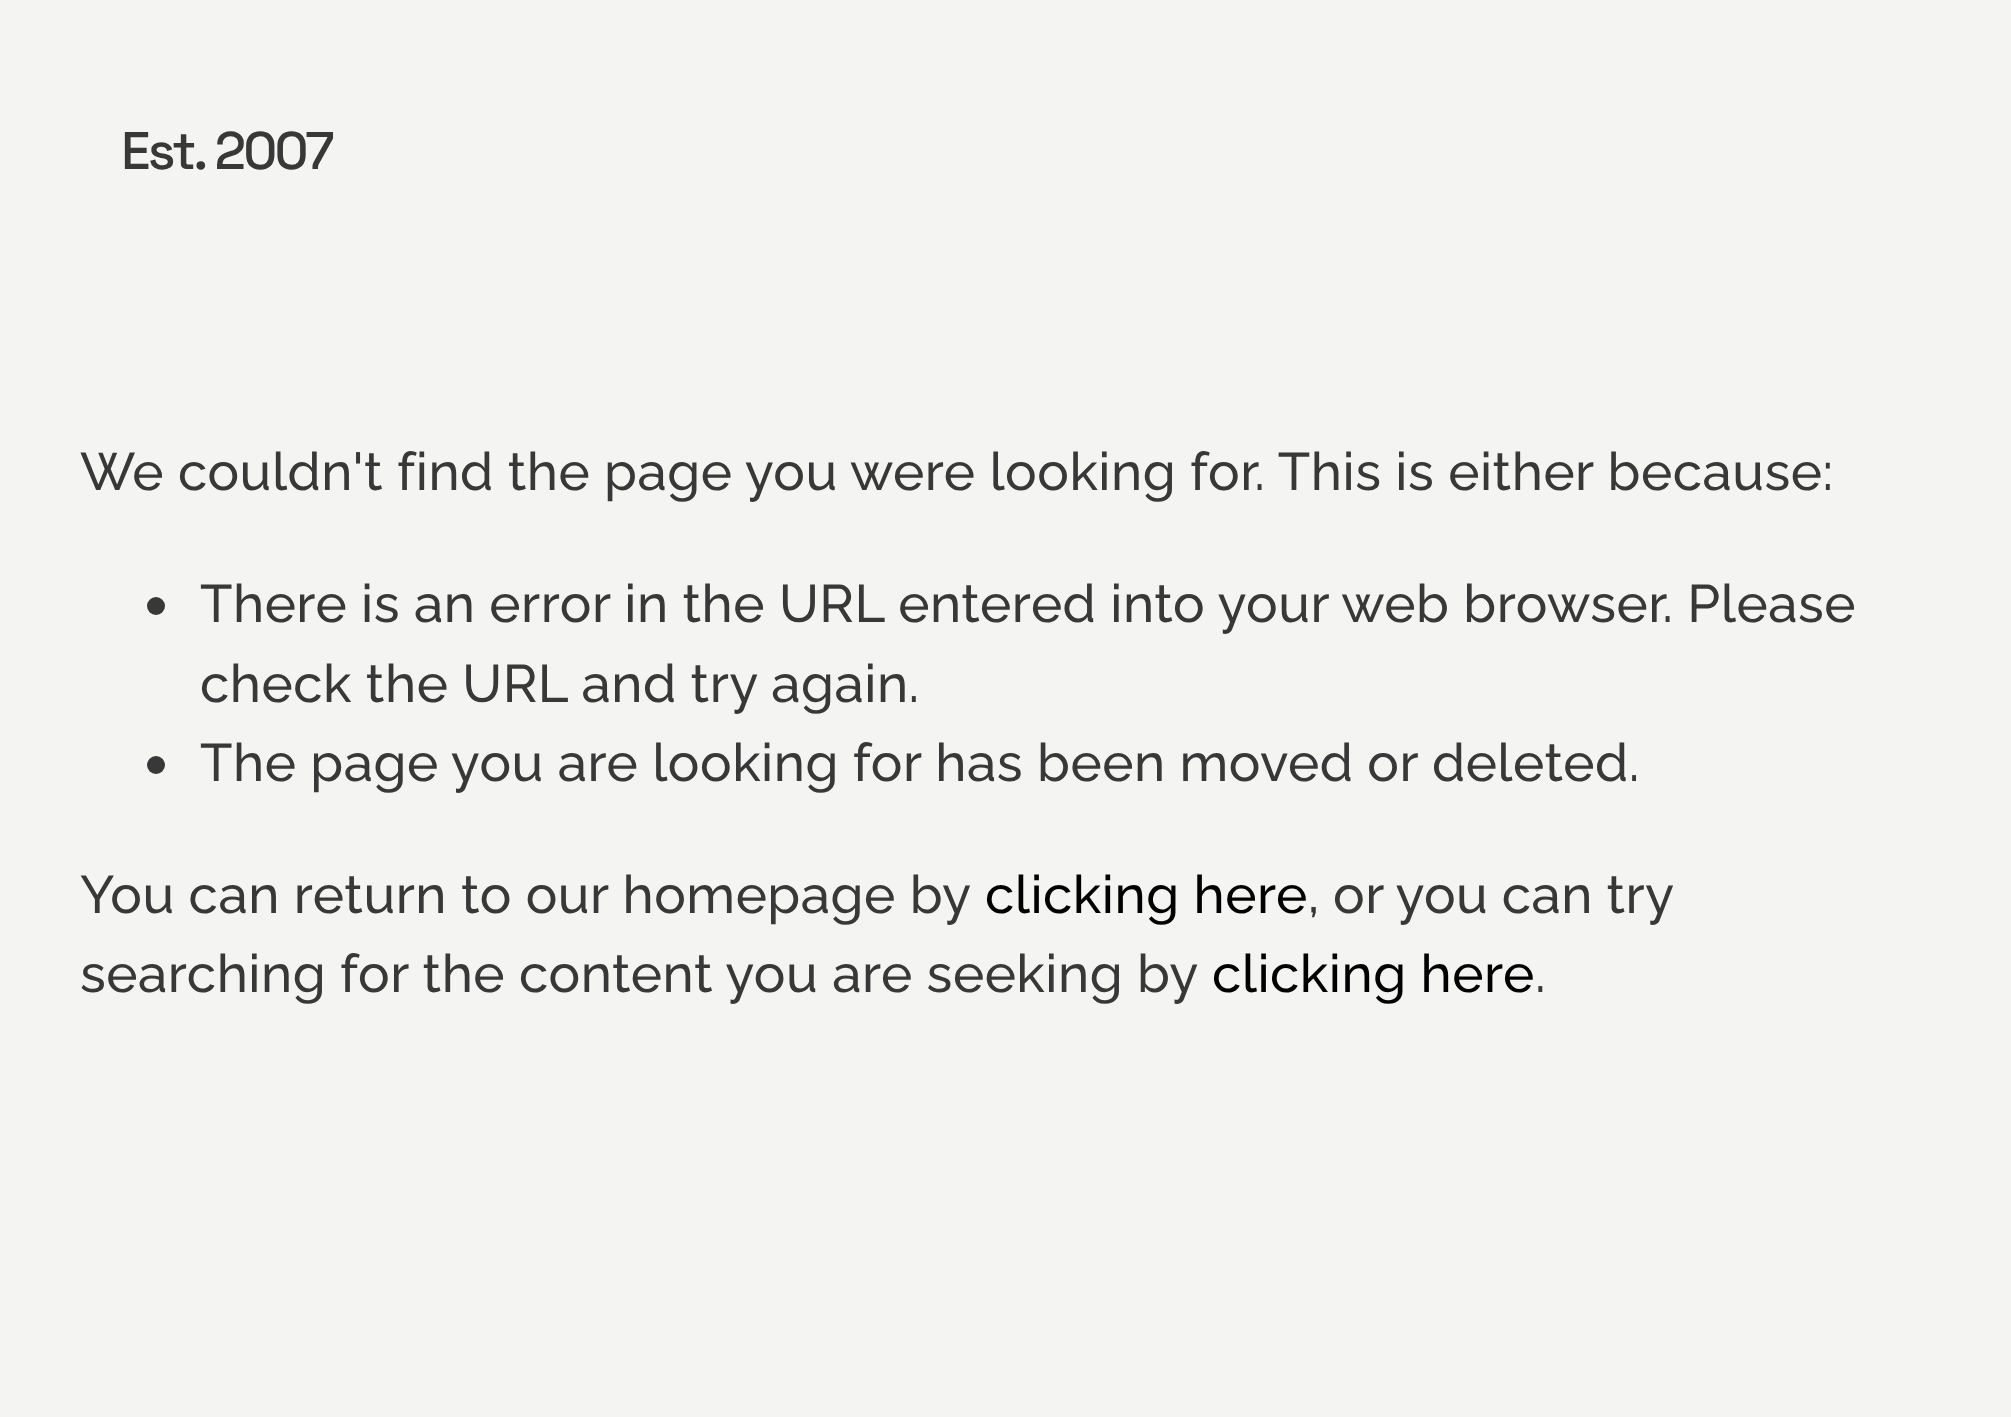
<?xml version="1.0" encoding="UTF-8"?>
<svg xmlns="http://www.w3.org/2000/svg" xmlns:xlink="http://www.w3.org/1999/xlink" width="2011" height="1417">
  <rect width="100%" height="100%" fill="#f4f4f3" />
  <circle cx="156" cy="606" r="9" fill="#383838" />
  <circle cx="156" cy="765" r="9" fill="#383838" />
  <text x="121" y="169" style="font-family: Space Grotesk; font-size: 52.8px; font-weight: 500; letter-spacing: -2.75px; fill: #383838">Est. 2007</text>
  <text x="80" y="490" style="font-family: Raleway; font-size: 52.8px; font-weight: 500; letter-spacing: 0.53px; fill: #383838">We couldn't find the page you were looking for. This is either because:</text>
  <text x="200" y="622" style="font-family: Raleway; font-size: 52.8px; font-weight: 500; letter-spacing: 0.53px; fill: #383838">There is an error in the URL entered into your web browser. Please</text>
  <text x="200" y="702" style="font-family: Raleway; font-size: 52.8px; font-weight: 500; letter-spacing: 0.53px; fill: #383838">check the URL and try again.</text>
  <text x="200" y="781" style="font-family: Raleway; font-size: 52.8px; font-weight: 500; letter-spacing: 0.53px; fill: #383838">The page you are looking for has been moved or deleted.</text>
  <text x="80" y="913" style="font-family: Raleway; font-size: 52.8px; font-weight: 500; letter-spacing: 0.53px; fill: #383838">You can return to our homepage by</text>
  <text x="985" y="913" style="font-family: Raleway; font-size: 52.8px; font-weight: 500; letter-spacing: 0.53px; fill: #000000">clicking here</text>
  <text x="1308" y="913" word-spacing="-0.5" style="font-family: Raleway; font-size: 52.8px; font-weight: 500; letter-spacing: 0.53px; fill: #383838">, or you can try</text>
  <text x="80" y="992" style="font-family: Raleway; font-size: 52.8px; font-weight: 500; letter-spacing: 0.53px; fill: #383838">searching for the content you are seeking by</text>
  <text x="1212" y="992" style="font-family: Raleway; font-size: 52.8px; font-weight: 500; letter-spacing: 0.53px; fill: #000000">clicking here</text>
  <text x="1535" y="992" style="font-family: Raleway; font-size: 52.8px; font-weight: 500; letter-spacing: 0.53px; fill: #383838">.</text>
</svg>
